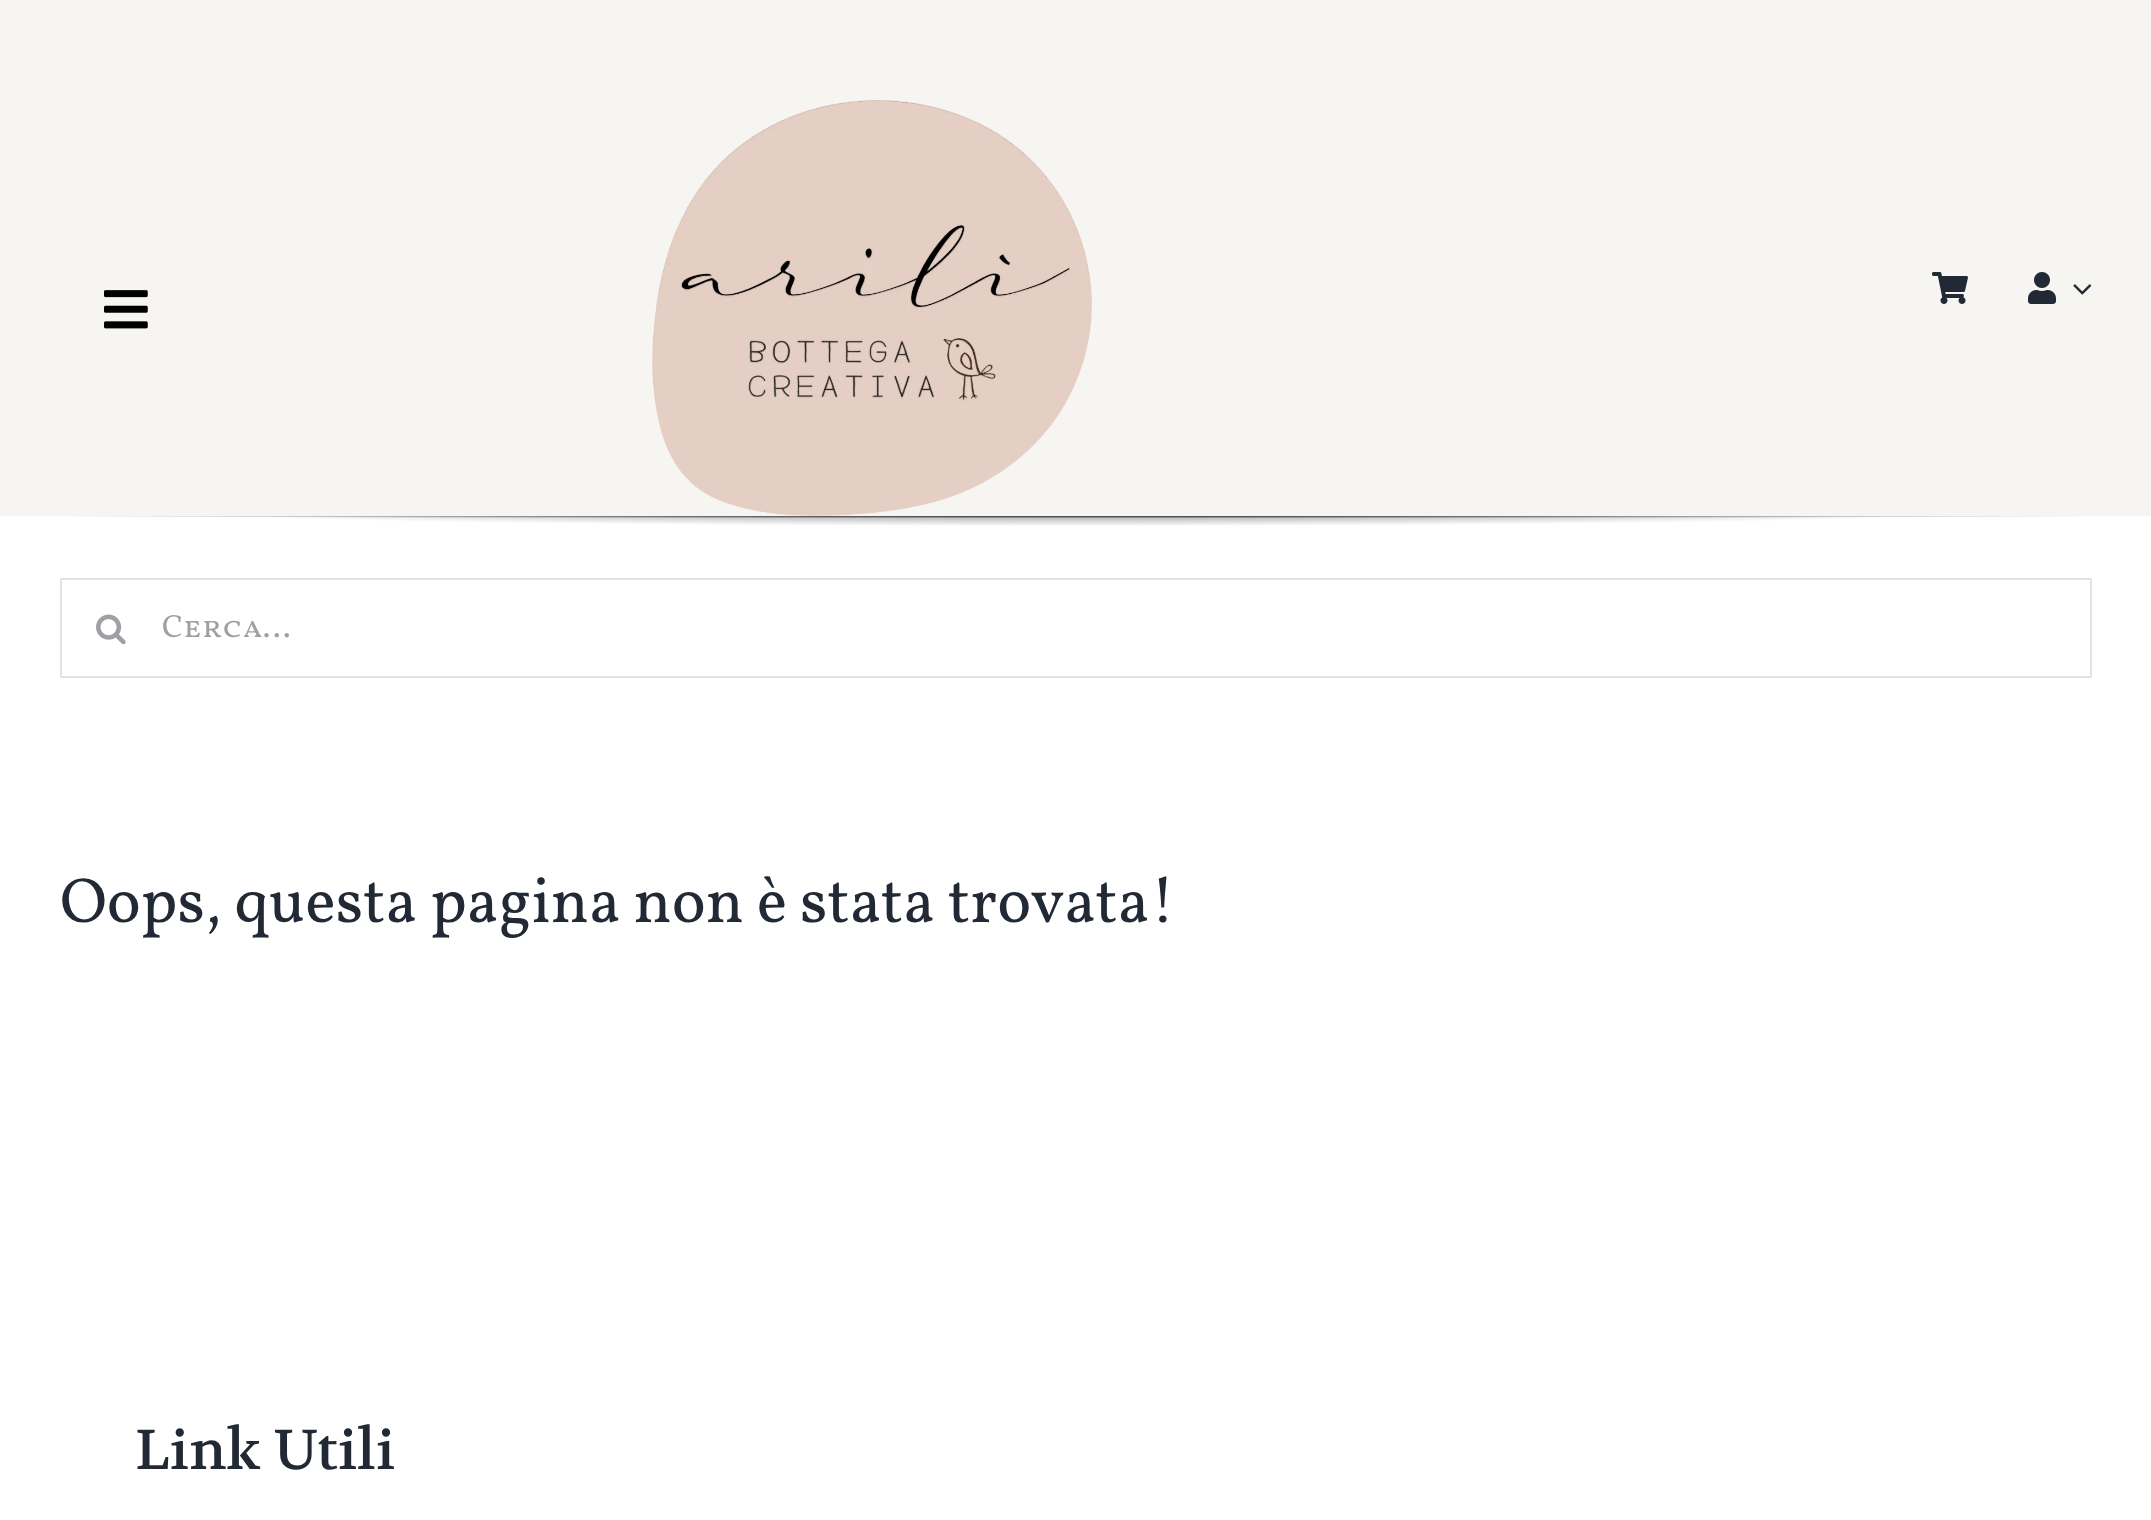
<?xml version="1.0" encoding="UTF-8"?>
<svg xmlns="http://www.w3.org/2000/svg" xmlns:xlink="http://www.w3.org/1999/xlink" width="2151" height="1520">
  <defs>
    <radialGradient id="g1" gradientUnits="userSpaceOnUse" cx="0" cy="0" r="1" gradientTransform="matrix(1437 0 0 4.2 1076 515)"><stop offset="0" stop-color="#000000" /><stop offset="0.8" stop-color="#ffffff" /></radialGradient>
    <radialGradient id="g2" gradientUnits="userSpaceOnUse" cx="0" cy="0" r="1" gradientTransform="matrix(1437 0 0 25 1076 510)"><stop offset="0" stop-color="#000000" stop-opacity="0.5" /><stop offset="0.65" stop-color="#000000" stop-opacity="0" /></radialGradient>
  </defs>
  <rect width="100%" height="100%" fill="#ffffff" />
  <rect width="2151" height="516" fill="#f6f5f2" />
  <image x="104" y="290" width="44" height="39" xlink:href="image1.png" />
  <image x="652" y="100" width="440" height="416" xlink:href="image2.png" />
  <image x="1932" y="272" width="36" height="32" xlink:href="image3.png" />
  <image x="2028" y="272" width="28" height="32" xlink:href="image4.png" />
  <image x="2073" y="284" width="19" height="11" xlink:href="image5.png" />
  <rect x="69" y="516" width="2014" height="2" fill="url(#g1)" />
  <rect x="271" y="516" width="1610" height="10" fill="url(#g2)" />
  <rect x="61" y="579" width="2030" height="98" fill="none" stroke="#e2e2e2" stroke-width="2" />
  <image x="96" y="614" width="30" height="31" xlink:href="image6.png" />
  <text x="162" y="637" style="font-family: Vollkorn SC; font-size: 32px; fill: #9ea0a4">Cerca...</text>
  <text x="60" y="922" style="font-family: Vollkorn; font-size: 64px; fill: #212934">Oops, questa pagina non è stata trovata!</text>
  <text x="135" y="1469" style="font-family: Volkhov; font-size: 56px; fill: #212934">Link Utili</text>
</svg>
